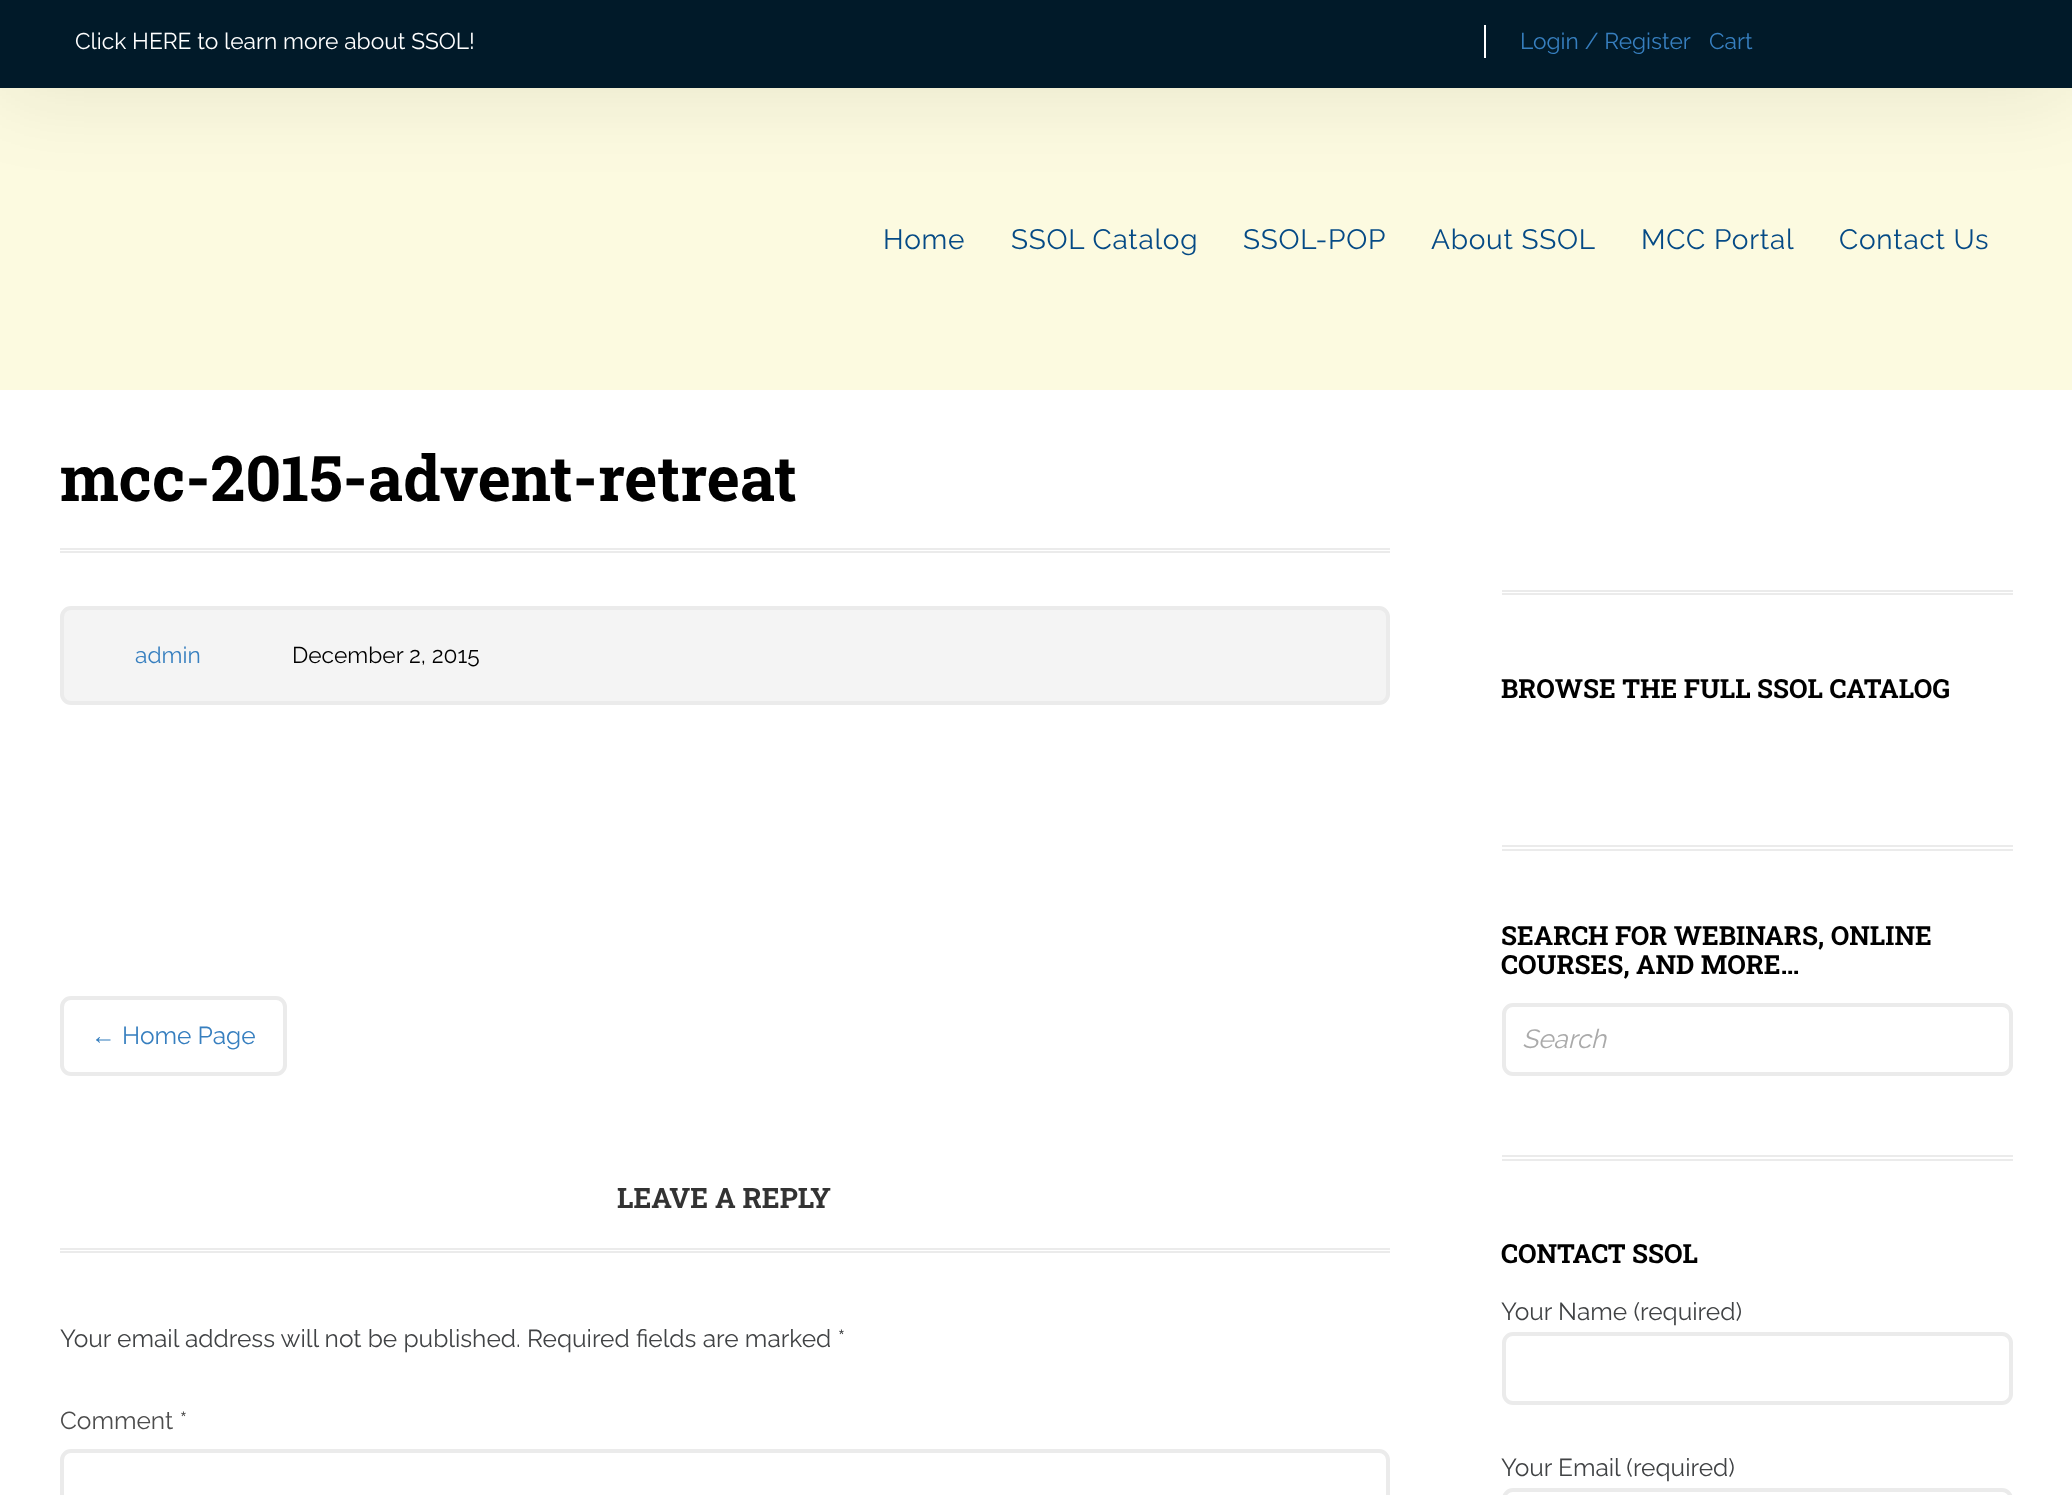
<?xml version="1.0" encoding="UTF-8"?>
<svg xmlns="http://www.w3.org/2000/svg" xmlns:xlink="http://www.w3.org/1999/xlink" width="2072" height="1495">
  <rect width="100%" height="100%" fill="#ffffff" />
  <rect width="2072" height="88" fill="#000000" fill-opacity="0.1" filter="blur(44px)" />
  <rect width="2072" height="88" fill="#011a29" />
  <rect x="1484" y="25" width="2" height="33" fill="#ffffff" />
  <rect y="88" width="2072" height="302" fill="#ead700" fill-opacity="0.12" />
  <rect x="60" y="548" width="1330" height="2" fill="#ebebeb" />
  <rect x="60" y="551" width="1330" height="2" fill="#ebebeb" />
  <rect x="62" y="608" width="1326" height="95" rx="9" fill="#f4f4f4" stroke="#ebebeb" stroke-width="4" />
  <rect x="62" y="998" width="223" height="76" rx="9" fill="none" stroke="#ebebeb" stroke-width="4" />
  <rect x="60" y="1248" width="1330" height="2" fill="#ebebeb" />
  <rect x="60" y="1251" width="1330" height="2" fill="#ebebeb" />
  <rect x="62" y="1451" width="1326" height="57" rx="9" fill="none" stroke="#ebebeb" stroke-width="4" />
  <rect x="1502" y="590" width="511" height="2" fill="#ebebeb" />
  <rect x="1502" y="593" width="511" height="2" fill="#ebebeb" />
  <rect x="1502" y="845" width="511" height="2" fill="#ebebeb" />
  <rect x="1502" y="849" width="511" height="2" fill="#ebebeb" />
  <rect x="1504" y="1005" width="507" height="69" rx="9" fill="none" stroke="#ebebeb" stroke-width="4" />
  <rect x="1502" y="1155" width="511" height="2" fill="#ebebeb" />
  <rect x="1502" y="1159" width="511" height="2" fill="#ebebeb" />
  <rect x="1504" y="1334" width="507" height="69" rx="9" fill="none" stroke="#ebebeb" stroke-width="4" />
  <rect x="1504" y="1490" width="507" height="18" rx="9" fill="none" stroke="#ebebeb" stroke-width="4" />
  <text x="75" y="49" style="font-family: Raleway; font-size: 22.75px; fill: #ffffff">Click HERE to learn more about SSOL!</text>
  <text x="1520" y="49" style="font-family: Raleway; font-size: 22.75px; fill: #377fbf">Login / Register</text>
  <text x="1709" y="49" style="font-family: Raleway; font-size: 22.75px; fill: #377fbf">Cart</text>
  <text x="883" y="249" style="font-family: Raleway; font-size: 28px; letter-spacing: 0.75px; fill: #054a85">Home</text>
  <text x="1011" y="249" style="font-family: Raleway; font-size: 28px; letter-spacing: 0.75px; fill: #054a85">SSOL Catalog</text>
  <text x="1243" y="249" style="font-family: Raleway; font-size: 28px; letter-spacing: 0.75px; fill: #054a85">SSOL-POP</text>
  <text x="1431" y="249" style="font-family: Raleway; font-size: 28px; letter-spacing: 0.75px; fill: #054a85">About SSOL</text>
  <text x="1641" y="249" style="font-family: Raleway; font-size: 28px; letter-spacing: 0.75px; fill: #054a85">MCC Portal</text>
  <text x="1839" y="249" style="font-family: Raleway; font-size: 28px; letter-spacing: 0.75px; fill: #054a85">Contact Us</text>
  <text x="60" y="501" style="font-family: Roboto Slab; font-size: 63px; font-weight: bold; fill: #000000">mcc-2015-advent-retreat</text>
  <text x="135" y="663" style="font-family: Raleway; font-size: 22.75px; fill: #377fbf">admin</text>
  <text x="292" y="663" style="font-family: Raleway; font-size: 22.75px; fill: #000000">December 2, 2015</text>
  <text x="91" y="1044" style="font-family: Liberation Sans; font-size: 24.5px; fill: #377fbf">←</text>
  <text x="122" y="1044" style="font-family: Raleway; font-size: 24.5px; fill: #377fbf">Home Page</text>
  <text x="617" y="1208" style="font-family: Roboto Slab; font-size: 28px; font-weight: bold; fill: #333333">LEAVE A REPLY</text>
  <text x="60" y="1347" style="font-family: Raleway; font-size: 24.5px; fill: #414345">Your email address will not be published. Required fields are marked *</text>
  <text x="60" y="1429" style="font-family: Raleway; font-size: 24.5px; fill: #4d4d4d">Comment *</text>
  <text x="1501" y="698" style="font-family: Roboto Slab; font-size: 26.25px; font-weight: bold; fill: #000000">BROWSE THE FULL SSOL CATALOG</text>
  <text x="1501" y="945" style="font-family: Roboto Slab; font-size: 26.25px; font-weight: bold; fill: #000000">SEARCH FOR WEBINARS, ONLINE</text>
  <text x="1501" y="974" style="font-family: Roboto Slab; font-size: 26.25px; font-weight: bold; fill: #000000">COURSES, AND MORE…</text>
  <text x="1522" y="1048" style="font-family: Raleway; font-size: 26.25px; font-style: italic; fill: #aaaaaa">Search</text>
  <text x="1501" y="1263" style="font-family: Roboto Slab; font-size: 26.25px; font-weight: bold; fill: #000000">CONTACT SSOL</text>
  <text x="1501" y="1320" style="font-family: Raleway; font-size: 24.5px; fill: #414345">Your Name (required)</text>
  <text x="1501" y="1476" style="font-family: Raleway; font-size: 24.5px; fill: #414345">Your Email (required)</text>
</svg>
